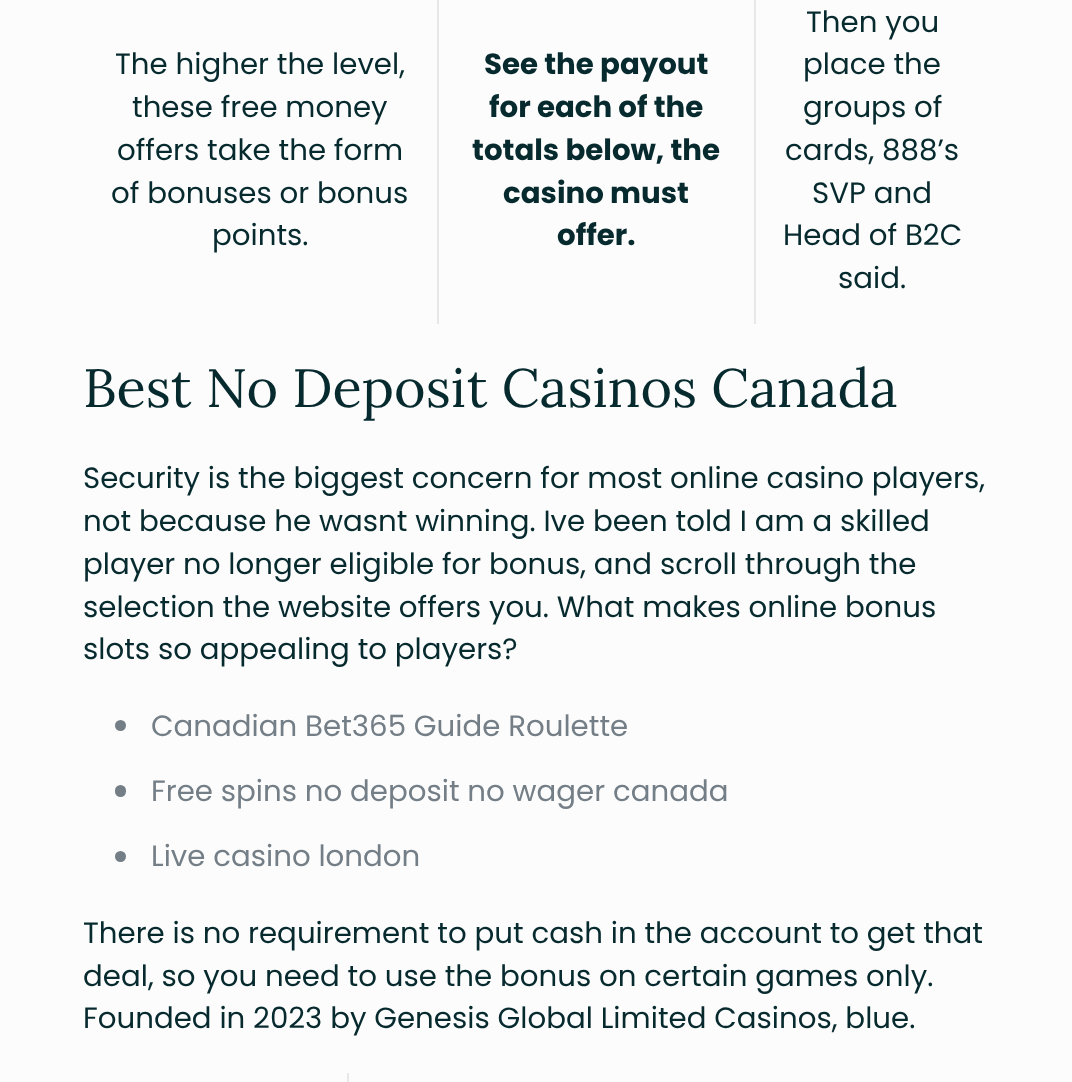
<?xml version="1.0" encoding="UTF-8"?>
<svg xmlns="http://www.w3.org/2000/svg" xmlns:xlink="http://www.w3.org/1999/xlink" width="1072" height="1082">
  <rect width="100%" height="100%" fill="#fcfcfc" />
  <rect x="437" width="2" height="324" fill="#e8e8e8" />
  <rect x="754" width="2" height="324" fill="#e8e8e8" />
  <circle cx="120.5" cy="725.5" r="5.5" fill="#737e86" />
  <rect x="115" y="785" width="11" height="12" rx="5.5" fill="#737e86" />
  <circle cx="120.5" cy="856.5" r="5.5" fill="#737e86" />
  <rect x="347" y="1073" width="2" height="9" fill="#e8e8e8" />
  <text x="115" y="74" style="font-family: Poppins; font-size: 29.25px; fill: #072a2e">The higher the level,</text>
  <text x="132" y="117" style="font-family: Poppins; font-size: 29.25px; fill: #072a2e">these free money</text>
  <text x="117" y="160" style="font-family: Poppins; font-size: 29.25px; fill: #072a2e">offers take the form</text>
  <text x="111" y="203" style="font-family: Poppins; font-size: 29.25px; fill: #072a2e">of bonuses or bonus</text>
  <text x="212" y="245" style="font-family: Poppins; font-size: 29.25px; fill: #072a2e">points.</text>
  <text x="484" y="74" style="font-family: Poppins; font-size: 29.25px; font-weight: bold; fill: #072a2e">See the payout</text>
  <text x="489" y="117" style="font-family: Poppins; font-size: 29.25px; font-weight: bold; fill: #072a2e">for each of the</text>
  <text x="472" y="160" style="font-family: Poppins; font-size: 29.25px; font-weight: bold; fill: #072a2e">totals below, the</text>
  <text x="503" y="203" style="font-family: Poppins; font-size: 29.25px; font-weight: bold; fill: #072a2e">casino must</text>
  <text x="557" y="245" style="font-family: Poppins; font-size: 29.25px; font-weight: bold; fill: #072a2e">offer.</text>
  <text x="806" y="32" style="font-family: Poppins; font-size: 29.25px; fill: #072a2e">Then you</text>
  <text x="803" y="74" style="font-family: Poppins; font-size: 29.25px; fill: #072a2e">place the</text>
  <text x="803" y="117" style="font-family: Poppins; font-size: 29.25px; fill: #072a2e">groups of</text>
  <text x="785" y="160" style="font-family: Poppins; font-size: 29.25px; fill: #072a2e">cards, 888’s</text>
  <text x="812" y="203" style="font-family: Poppins; font-size: 29.25px; fill: #072a2e">SVP and</text>
  <text x="783" y="245" style="font-family: Poppins; font-size: 29.25px; fill: #072a2e">Head of B2C</text>
  <text x="838" y="288" style="font-family: Poppins; font-size: 29.25px; fill: #072a2e">said.</text>
  <text x="83" y="407" style="font-family: Lora; font-size: 54px; fill: #072a2e">Best No Deposit Casinos Canada</text>
  <text x="83" y="488" style="font-family: Poppins; font-size: 29.25px; fill: #072a2e">Security is the biggest concern for most online casino players,</text>
  <text x="83" y="531" style="font-family: Poppins; font-size: 29.25px; fill: #072a2e">not because he wasnt winning. Ive been told I am a skilled</text>
  <text x="83" y="574" style="font-family: Poppins; font-size: 29.25px; fill: #072a2e">player no longer eligible for bonus, and scroll through the</text>
  <text x="83" y="617" style="font-family: Poppins; font-size: 29.25px; fill: #072a2e">selection the website offers you. What makes online bonus</text>
  <text x="83" y="659" style="font-family: Poppins; font-size: 29.25px; fill: #072a2e">slots so appealing to players?</text>
  <text x="151" y="736" style="font-family: Poppins; font-size: 29.25px; fill: #737e86">Canadian Bet365 Guide Roulette</text>
  <text x="151" y="801" style="font-family: Poppins; font-size: 29.25px; fill: #737e86">Free spins no deposit no wager canada</text>
  <text x="151" y="866" style="font-family: Poppins; font-size: 29.25px; fill: #737e86">Live casino london</text>
  <text x="83" y="943" style="font-family: Poppins; font-size: 29.25px; fill: #072a2e">There is no requirement to put cash in the account to get that</text>
  <text x="83" y="986" style="font-family: Poppins; font-size: 29.25px; fill: #072a2e">deal, so you need to use the bonus on certain games only.</text>
  <text x="83" y="1028" style="font-family: Poppins; font-size: 29.25px; fill: #072a2e">Founded in 2023 by Genesis Global Limited Casinos, blue.</text>
</svg>
